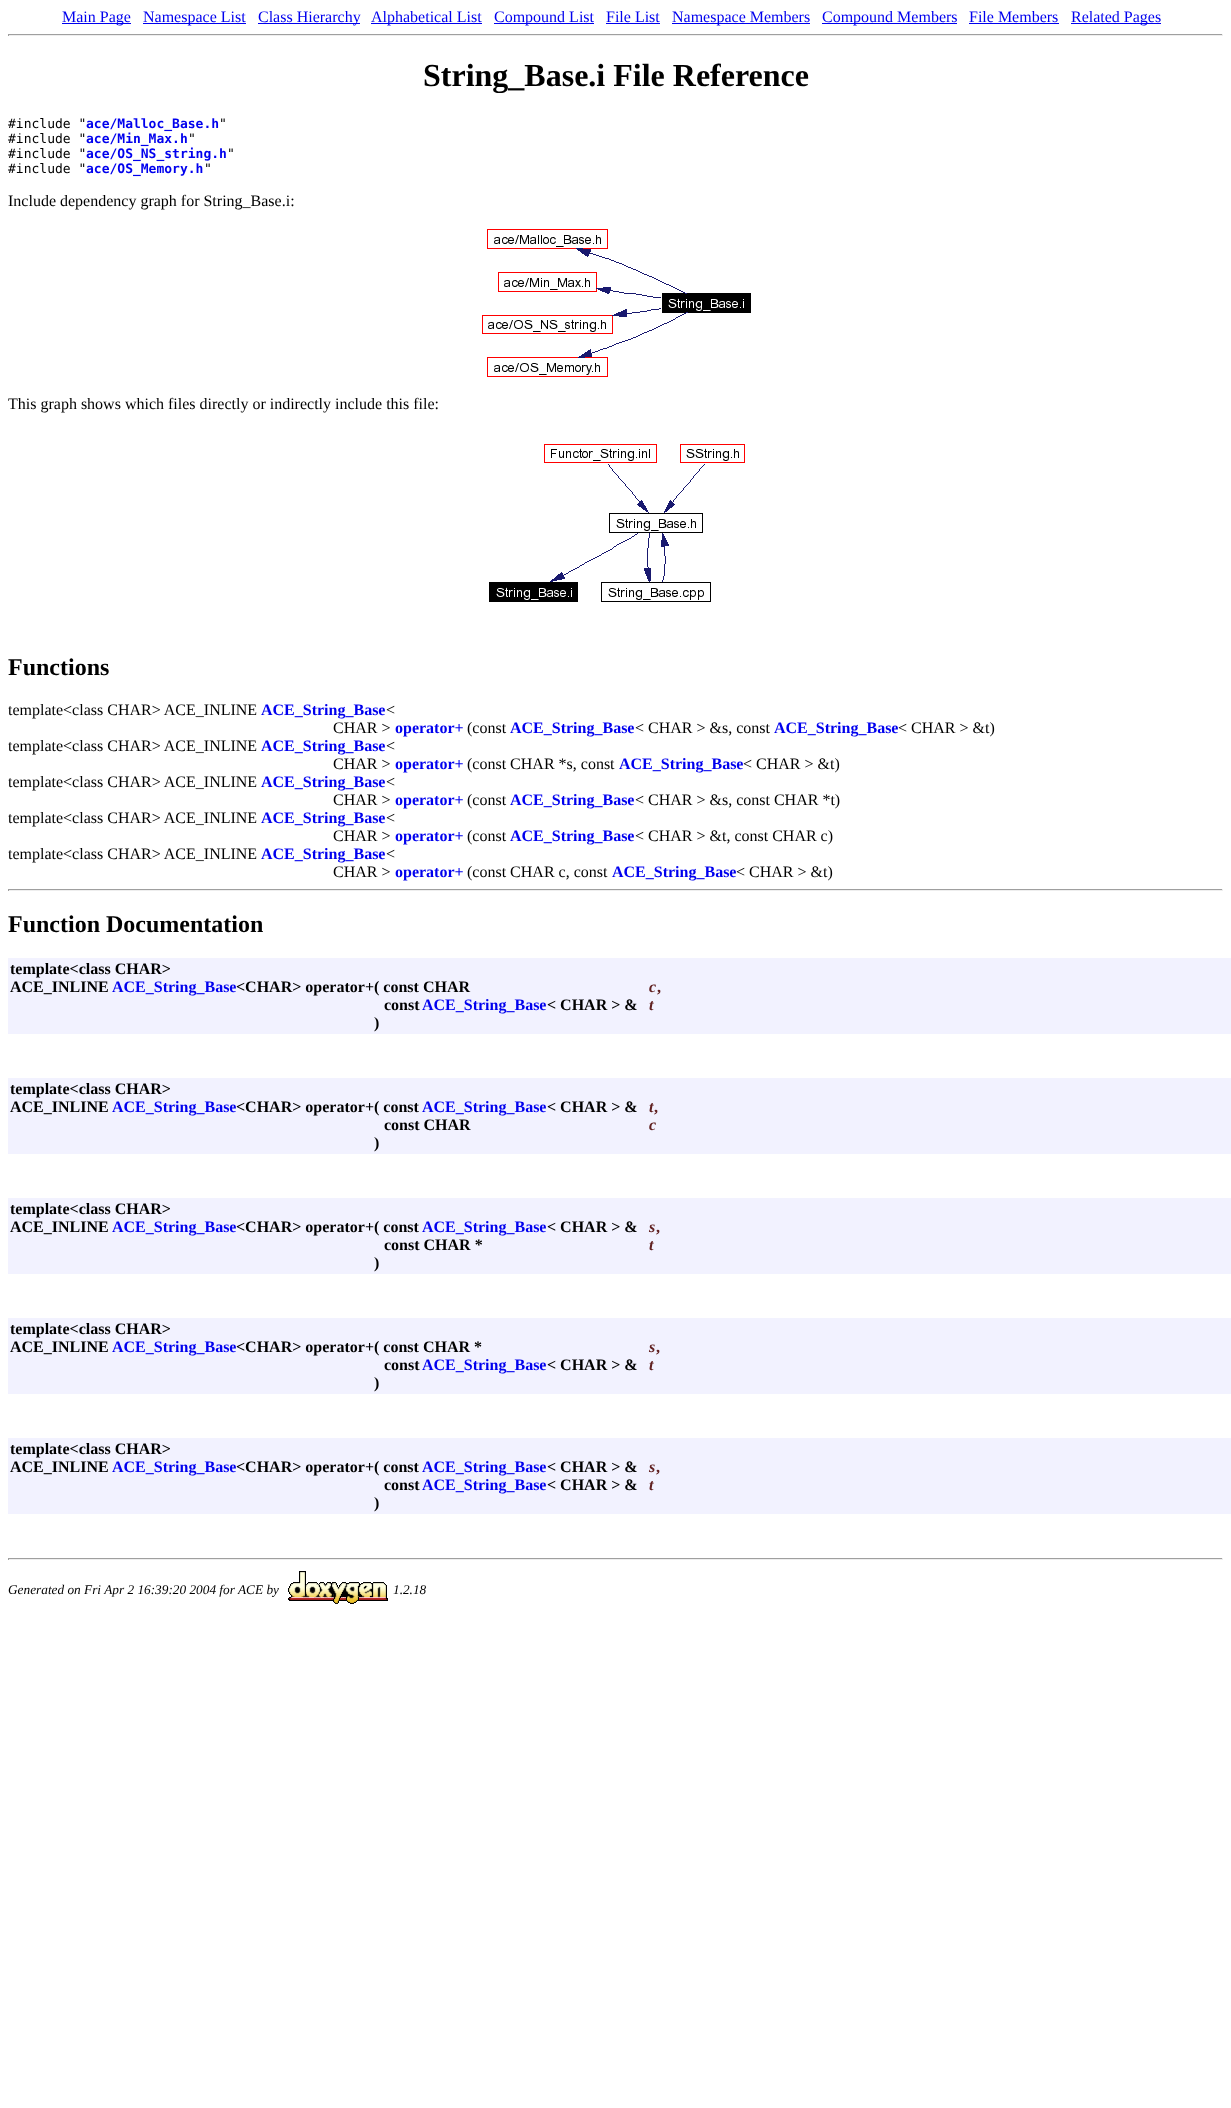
<?xml version="1.0" encoding="UTF-8"?>
<svg xmlns="http://www.w3.org/2000/svg" xmlns:xlink="http://www.w3.org/1999/xlink" width="1231" height="2108">
  <rect width="100%" height="100%" fill="#ffffff" />
  <rect x="62" y="23" width="69" height="1" fill="#0000ee" />
  <rect x="143" y="23" width="103" height="1" fill="#0000ee" />
  <rect x="258" y="23" width="102" height="1" fill="#0000ee" />
  <rect x="371" y="23" width="111" height="1" fill="#0000ee" />
  <rect x="494" y="23" width="100" height="1" fill="#0000ee" />
  <rect x="606" y="23" width="54" height="1" fill="#0000ee" />
  <rect x="672" y="23" width="138" height="1" fill="#0000ee" />
  <rect x="822" y="23" width="135" height="1" fill="#0000ee" />
  <rect x="969" y="23" width="90" height="1" fill="#0000ee" />
  <rect x="1071" y="23" width="90" height="1" fill="#0000ee" />
  <rect x="8" y="34" width="1215" height="1" fill="#9f9f9f" />
  <rect x="1222" y="34" width="1" height="2" fill="#eeeeee" />
  <rect x="8" y="35" width="1215" height="1" fill="#eeeeee" />
  <rect x="8" y="34" width="1" height="2" fill="#9f9f9f" />
  <image x="482" y="229" width="269" height="148" xlink:href="image1.png" />
  <image x="489" y="444" width="256" height="158" xlink:href="image2.png" />
  <rect x="8" y="889" width="1215" height="1" fill="#9f9f9f" />
  <rect x="1222" y="889" width="1" height="2" fill="#eeeeee" />
  <rect x="8" y="890" width="1215" height="1" fill="#eeeeee" />
  <rect x="8" y="889" width="1" height="2" fill="#9f9f9f" />
  <rect x="8" y="958" width="1223" height="76" fill="#f2f2ff" />
  <rect x="8" y="1078" width="1223" height="76" fill="#f2f2ff" />
  <rect x="8" y="1198" width="1223" height="76" fill="#f2f2ff" />
  <rect x="8" y="1318" width="1223" height="76" fill="#f2f2ff" />
  <rect x="8" y="1438" width="1223" height="76" fill="#f2f2ff" />
  <rect x="8" y="1558" width="1215" height="1" fill="#9f9f9f" />
  <rect x="1222" y="1558" width="1" height="2" fill="#eeeeee" />
  <rect x="8" y="1559" width="1215" height="1" fill="#eeeeee" />
  <rect x="8" y="1558" width="1" height="2" fill="#9f9f9f" />
  <image x="288" y="1571" width="100" height="33" xlink:href="image3.png" />
  <text x="62" y="22" style="font-family: Liberation Serif; font-size: 16px; fill: #0000ee">Main Page</text>
  <text x="143" y="22" style="font-family: Liberation Serif; font-size: 16px; fill: #0000ee">Namespace List</text>
  <text x="258" y="22" style="font-family: Liberation Serif; font-size: 16px; fill: #0000ee">Class Hierarchy</text>
  <text x="371" y="22" style="font-family: Liberation Serif; font-size: 16px; fill: #0000ee">Alphabetical List</text>
  <text x="494" y="22" style="font-family: Liberation Serif; font-size: 16px; fill: #0000ee">Compound List</text>
  <text x="606" y="22" style="font-family: Liberation Serif; font-size: 16px; fill: #0000ee">File List</text>
  <text x="672" y="22" style="font-family: Liberation Serif; font-size: 16px; fill: #0000ee">Namespace Members</text>
  <text x="822" y="22" style="font-family: Liberation Serif; font-size: 16px; fill: #0000ee">Compound Members</text>
  <text x="969" y="22" style="font-family: Liberation Serif; font-size: 16px; fill: #0000ee">File Members</text>
  <text x="1071" y="22" style="font-family: Liberation Serif; font-size: 16px; fill: #0000ee">Related Pages</text>
  <text x="423" y="86" style="font-family: Liberation Serif; font-size: 32px; font-weight: bold; fill: #000000">String_Base.i File Reference</text>
  <text x="8" y="128" style="font-family: DejaVu Sans Mono; font-size: 13px; fill: #000000">#include "</text>
  <text x="86" y="128" style="font-family: DejaVu Sans Mono; font-size: 13px; font-weight: bold; fill: #0000ee">ace/Malloc_Base.h</text>
  <text x="219" y="128" style="font-family: DejaVu Sans Mono; font-size: 13px; fill: #000000">"</text>
  <text x="8" y="143" style="font-family: DejaVu Sans Mono; font-size: 13px; fill: #000000">#include "</text>
  <text x="86" y="143" style="font-family: DejaVu Sans Mono; font-size: 13px; font-weight: bold; fill: #0000ee">ace/Min_Max.h</text>
  <text x="188" y="143" style="font-family: DejaVu Sans Mono; font-size: 13px; fill: #000000">"</text>
  <text x="8" y="158" style="font-family: DejaVu Sans Mono; font-size: 13px; fill: #000000">#include "</text>
  <text x="86" y="158" style="font-family: DejaVu Sans Mono; font-size: 13px; font-weight: bold; fill: #0000ee">ace/OS_NS_string.h</text>
  <text x="227" y="158" style="font-family: DejaVu Sans Mono; font-size: 13px; fill: #000000">"</text>
  <text x="8" y="173" style="font-family: DejaVu Sans Mono; font-size: 13px; fill: #000000">#include "</text>
  <text x="86" y="173" style="font-family: DejaVu Sans Mono; font-size: 13px; font-weight: bold; fill: #0000ee">ace/OS_Memory.h</text>
  <text x="204" y="173" style="font-family: DejaVu Sans Mono; font-size: 13px; fill: #000000">"</text>
  <text x="8" y="206" style="font-family: Liberation Serif; font-size: 16px; fill: #000000">Include dependency graph for String_Base.i:</text>
  <text x="8" y="409" style="font-family: Liberation Serif; font-size: 16px; fill: #000000">This graph shows which files directly or indirectly include this file:</text>
  <text x="8" y="675" style="font-family: Liberation Serif; font-size: 24px; font-weight: bold; fill: #000000">Functions</text>
  <text x="8" y="715" style="font-family: Liberation Serif; font-size: 16px; fill: #000000">template&lt;class CHAR&gt; ACE_INLINE</text>
  <text x="261" y="715" style="font-family: Liberation Serif; font-size: 16px; font-weight: bold; fill: #0000ee">ACE_String_Base</text>
  <text x="386" y="715" style="font-family: Liberation Serif; font-size: 16px; fill: #000000">&lt;</text>
  <text x="333" y="733" style="font-family: Liberation Serif; font-size: 16px; fill: #000000">CHAR &gt;</text>
  <text x="395" y="733" style="font-family: Liberation Serif; font-size: 16px; font-weight: bold; fill: #0000ee">operator+</text>
  <text x="467" y="733" style="font-family: Liberation Serif; font-size: 16px; fill: #000000">(const</text>
  <text x="510" y="733" style="font-family: Liberation Serif; font-size: 16px; font-weight: bold; fill: #0000ee">ACE_String_Base</text>
  <text x="635" y="733" style="font-family: Liberation Serif; font-size: 16px; fill: #000000">&lt; CHAR &gt; &amp;s, const</text>
  <text x="774" y="733" style="font-family: Liberation Serif; font-size: 16px; font-weight: bold; fill: #0000ee">ACE_String_Base</text>
  <text x="898" y="733" style="font-family: Liberation Serif; font-size: 16px; fill: #000000">&lt; CHAR &gt; &amp;t)</text>
  <text x="8" y="751" style="font-family: Liberation Serif; font-size: 16px; fill: #000000">template&lt;class CHAR&gt; ACE_INLINE</text>
  <text x="261" y="751" style="font-family: Liberation Serif; font-size: 16px; font-weight: bold; fill: #0000ee">ACE_String_Base</text>
  <text x="386" y="751" style="font-family: Liberation Serif; font-size: 16px; fill: #000000">&lt;</text>
  <text x="333" y="769" style="font-family: Liberation Serif; font-size: 16px; fill: #000000">CHAR &gt;</text>
  <text x="395" y="769" style="font-family: Liberation Serif; font-size: 16px; font-weight: bold; fill: #0000ee">operator+</text>
  <text x="467" y="769" style="font-family: Liberation Serif; font-size: 16px; fill: #000000">(const CHAR *s, const</text>
  <text x="619" y="769" style="font-family: Liberation Serif; font-size: 16px; font-weight: bold; fill: #0000ee">ACE_String_Base</text>
  <text x="743" y="769" style="font-family: Liberation Serif; font-size: 16px; fill: #000000">&lt; CHAR &gt; &amp;t)</text>
  <text x="8" y="787" style="font-family: Liberation Serif; font-size: 16px; fill: #000000">template&lt;class CHAR&gt; ACE_INLINE</text>
  <text x="261" y="787" style="font-family: Liberation Serif; font-size: 16px; font-weight: bold; fill: #0000ee">ACE_String_Base</text>
  <text x="386" y="787" style="font-family: Liberation Serif; font-size: 16px; fill: #000000">&lt;</text>
  <text x="333" y="805" style="font-family: Liberation Serif; font-size: 16px; fill: #000000">CHAR &gt;</text>
  <text x="395" y="805" style="font-family: Liberation Serif; font-size: 16px; font-weight: bold; fill: #0000ee">operator+</text>
  <text x="467" y="805" style="font-family: Liberation Serif; font-size: 16px; fill: #000000">(const</text>
  <text x="510" y="805" style="font-family: Liberation Serif; font-size: 16px; font-weight: bold; fill: #0000ee">ACE_String_Base</text>
  <text x="635" y="805" style="font-family: Liberation Serif; font-size: 16px; fill: #000000">&lt; CHAR &gt; &amp;s, const CHAR *t)</text>
  <text x="8" y="823" style="font-family: Liberation Serif; font-size: 16px; fill: #000000">template&lt;class CHAR&gt; ACE_INLINE</text>
  <text x="261" y="823" style="font-family: Liberation Serif; font-size: 16px; font-weight: bold; fill: #0000ee">ACE_String_Base</text>
  <text x="386" y="823" style="font-family: Liberation Serif; font-size: 16px; fill: #000000">&lt;</text>
  <text x="333" y="841" style="font-family: Liberation Serif; font-size: 16px; fill: #000000">CHAR &gt;</text>
  <text x="395" y="841" style="font-family: Liberation Serif; font-size: 16px; font-weight: bold; fill: #0000ee">operator+</text>
  <text x="467" y="841" style="font-family: Liberation Serif; font-size: 16px; fill: #000000">(const</text>
  <text x="510" y="841" style="font-family: Liberation Serif; font-size: 16px; font-weight: bold; fill: #0000ee">ACE_String_Base</text>
  <text x="635" y="841" style="font-family: Liberation Serif; font-size: 16px; fill: #000000">&lt; CHAR &gt; &amp;t, const CHAR c)</text>
  <text x="8" y="859" style="font-family: Liberation Serif; font-size: 16px; fill: #000000">template&lt;class CHAR&gt; ACE_INLINE</text>
  <text x="261" y="859" style="font-family: Liberation Serif; font-size: 16px; font-weight: bold; fill: #0000ee">ACE_String_Base</text>
  <text x="386" y="859" style="font-family: Liberation Serif; font-size: 16px; fill: #000000">&lt;</text>
  <text x="333" y="877" style="font-family: Liberation Serif; font-size: 16px; fill: #000000">CHAR &gt;</text>
  <text x="395" y="877" style="font-family: Liberation Serif; font-size: 16px; font-weight: bold; fill: #0000ee">operator+</text>
  <text x="467" y="877" style="font-family: Liberation Serif; font-size: 16px; fill: #000000">(const CHAR c, const</text>
  <text x="612" y="877" style="font-family: Liberation Serif; font-size: 16px; font-weight: bold; fill: #0000ee">ACE_String_Base</text>
  <text x="736" y="877" style="font-family: Liberation Serif; font-size: 16px; fill: #000000">&lt; CHAR &gt; &amp;t)</text>
  <text x="8" y="932" style="font-family: Liberation Serif; font-size: 24px; font-weight: bold; fill: #000000">Function Documentation</text>
  <text x="10" y="974" style="font-family: Liberation Serif; font-size: 16px; font-weight: bold; fill: #000000">template&lt;class CHAR&gt;</text>
  <text x="10" y="992" style="font-family: Liberation Serif; font-size: 16px; font-weight: bold; fill: #000000">ACE_INLINE</text>
  <text x="112" y="992" style="font-family: Liberation Serif; font-size: 16px; font-weight: bold; fill: #0000ee">ACE_String_Base</text>
  <text x="236" y="992" style="font-family: Liberation Serif; font-size: 16px; font-weight: bold; fill: #000000">&lt;CHAR&gt; operator+( const CHAR</text>
  <text x="649" y="992" style="font-family: Liberation Serif; font-size: 16px; font-weight: bold; font-style: italic; fill: #602020">c</text>
  <text x="657" y="992" style="font-family: Liberation Serif; font-size: 16px; font-weight: bold; fill: #602020">,</text>
  <text x="384" y="1010" style="font-family: Liberation Serif; font-size: 16px; font-weight: bold; fill: #000000">const</text>
  <text x="422" y="1010" style="font-family: Liberation Serif; font-size: 16px; font-weight: bold; fill: #0000ee">ACE_String_Base</text>
  <text x="547" y="1010" style="font-family: Liberation Serif; font-size: 16px; font-weight: bold; fill: #000000">&lt; CHAR &gt; &amp;</text>
  <text x="649" y="1010" style="font-family: Liberation Serif; font-size: 16px; font-weight: bold; font-style: italic; fill: #602020">t</text>
  <text x="374" y="1028" style="font-family: Liberation Serif; font-size: 16px; font-weight: bold; fill: #000000">)</text>
  <text x="10" y="1094" style="font-family: Liberation Serif; font-size: 16px; font-weight: bold; fill: #000000">template&lt;class CHAR&gt;</text>
  <text x="10" y="1112" style="font-family: Liberation Serif; font-size: 16px; font-weight: bold; fill: #000000">ACE_INLINE</text>
  <text x="112" y="1112" style="font-family: Liberation Serif; font-size: 16px; font-weight: bold; fill: #0000ee">ACE_String_Base</text>
  <text x="236" y="1112" style="font-family: Liberation Serif; font-size: 16px; font-weight: bold; fill: #000000">&lt;CHAR&gt; operator+( const</text>
  <text x="422" y="1112" style="font-family: Liberation Serif; font-size: 16px; font-weight: bold; fill: #0000ee">ACE_String_Base</text>
  <text x="547" y="1112" style="font-family: Liberation Serif; font-size: 16px; font-weight: bold; fill: #000000">&lt; CHAR &gt; &amp;</text>
  <text x="649" y="1112" style="font-family: Liberation Serif; font-size: 16px; font-weight: bold; font-style: italic; fill: #602020">t</text>
  <text x="654" y="1112" style="font-family: Liberation Serif; font-size: 16px; font-weight: bold; fill: #602020">,</text>
  <text x="384" y="1130" style="font-family: Liberation Serif; font-size: 16px; font-weight: bold; fill: #000000">const CHAR</text>
  <text x="649" y="1130" style="font-family: Liberation Serif; font-size: 16px; font-weight: bold; font-style: italic; fill: #602020">c</text>
  <text x="374" y="1148" style="font-family: Liberation Serif; font-size: 16px; font-weight: bold; fill: #000000">)</text>
  <text x="10" y="1214" style="font-family: Liberation Serif; font-size: 16px; font-weight: bold; fill: #000000">template&lt;class CHAR&gt;</text>
  <text x="10" y="1232" style="font-family: Liberation Serif; font-size: 16px; font-weight: bold; fill: #000000">ACE_INLINE</text>
  <text x="112" y="1232" style="font-family: Liberation Serif; font-size: 16px; font-weight: bold; fill: #0000ee">ACE_String_Base</text>
  <text x="236" y="1232" style="font-family: Liberation Serif; font-size: 16px; font-weight: bold; fill: #000000">&lt;CHAR&gt; operator+( const</text>
  <text x="422" y="1232" style="font-family: Liberation Serif; font-size: 16px; font-weight: bold; fill: #0000ee">ACE_String_Base</text>
  <text x="547" y="1232" style="font-family: Liberation Serif; font-size: 16px; font-weight: bold; fill: #000000">&lt; CHAR &gt; &amp;</text>
  <text x="649" y="1232" style="font-family: Liberation Serif; font-size: 16px; font-weight: bold; font-style: italic; fill: #602020">s</text>
  <text x="656" y="1232" style="font-family: Liberation Serif; font-size: 16px; font-weight: bold; fill: #602020">,</text>
  <text x="384" y="1250" style="font-family: Liberation Serif; font-size: 16px; font-weight: bold; fill: #000000">const CHAR *</text>
  <text x="649" y="1250" style="font-family: Liberation Serif; font-size: 16px; font-weight: bold; font-style: italic; fill: #602020">t</text>
  <text x="374" y="1268" style="font-family: Liberation Serif; font-size: 16px; font-weight: bold; fill: #000000">)</text>
  <text x="10" y="1334" style="font-family: Liberation Serif; font-size: 16px; font-weight: bold; fill: #000000">template&lt;class CHAR&gt;</text>
  <text x="10" y="1352" style="font-family: Liberation Serif; font-size: 16px; font-weight: bold; fill: #000000">ACE_INLINE</text>
  <text x="112" y="1352" style="font-family: Liberation Serif; font-size: 16px; font-weight: bold; fill: #0000ee">ACE_String_Base</text>
  <text x="236" y="1352" style="font-family: Liberation Serif; font-size: 16px; font-weight: bold; fill: #000000">&lt;CHAR&gt; operator+( const CHAR *</text>
  <text x="649" y="1352" style="font-family: Liberation Serif; font-size: 16px; font-weight: bold; font-style: italic; fill: #602020">s</text>
  <text x="656" y="1352" style="font-family: Liberation Serif; font-size: 16px; font-weight: bold; fill: #602020">,</text>
  <text x="384" y="1370" style="font-family: Liberation Serif; font-size: 16px; font-weight: bold; fill: #000000">const</text>
  <text x="422" y="1370" style="font-family: Liberation Serif; font-size: 16px; font-weight: bold; fill: #0000ee">ACE_String_Base</text>
  <text x="547" y="1370" style="font-family: Liberation Serif; font-size: 16px; font-weight: bold; fill: #000000">&lt; CHAR &gt; &amp;</text>
  <text x="649" y="1370" style="font-family: Liberation Serif; font-size: 16px; font-weight: bold; font-style: italic; fill: #602020">t</text>
  <text x="374" y="1388" style="font-family: Liberation Serif; font-size: 16px; font-weight: bold; fill: #000000">)</text>
  <text x="10" y="1454" style="font-family: Liberation Serif; font-size: 16px; font-weight: bold; fill: #000000">template&lt;class CHAR&gt;</text>
  <text x="10" y="1472" style="font-family: Liberation Serif; font-size: 16px; font-weight: bold; fill: #000000">ACE_INLINE</text>
  <text x="112" y="1472" style="font-family: Liberation Serif; font-size: 16px; font-weight: bold; fill: #0000ee">ACE_String_Base</text>
  <text x="236" y="1472" style="font-family: Liberation Serif; font-size: 16px; font-weight: bold; fill: #000000">&lt;CHAR&gt; operator+( const</text>
  <text x="422" y="1472" style="font-family: Liberation Serif; font-size: 16px; font-weight: bold; fill: #0000ee">ACE_String_Base</text>
  <text x="547" y="1472" style="font-family: Liberation Serif; font-size: 16px; font-weight: bold; fill: #000000">&lt; CHAR &gt; &amp;</text>
  <text x="649" y="1472" style="font-family: Liberation Serif; font-size: 16px; font-weight: bold; font-style: italic; fill: #602020">s</text>
  <text x="656" y="1472" style="font-family: Liberation Serif; font-size: 16px; font-weight: bold; fill: #602020">,</text>
  <text x="384" y="1490" style="font-family: Liberation Serif; font-size: 16px; font-weight: bold; fill: #000000">const</text>
  <text x="422" y="1490" style="font-family: Liberation Serif; font-size: 16px; font-weight: bold; fill: #0000ee">ACE_String_Base</text>
  <text x="547" y="1490" style="font-family: Liberation Serif; font-size: 16px; font-weight: bold; fill: #000000">&lt; CHAR &gt; &amp;</text>
  <text x="649" y="1490" style="font-family: Liberation Serif; font-size: 16px; font-weight: bold; font-style: italic; fill: #602020">t</text>
  <text x="374" y="1508" style="font-family: Liberation Serif; font-size: 16px; font-weight: bold; fill: #000000">)</text>
  <text x="8" y="1594" style="font-family: Liberation Serif; font-size: 13.3px; font-style: italic; fill: #000000">Generated on Fri Apr 2 16:39:20 2004 for ACE by</text>
  <text x="393" y="1594" style="font-family: Liberation Serif; font-size: 13.3px; font-style: italic; fill: #000000">1.2.18</text>
</svg>
